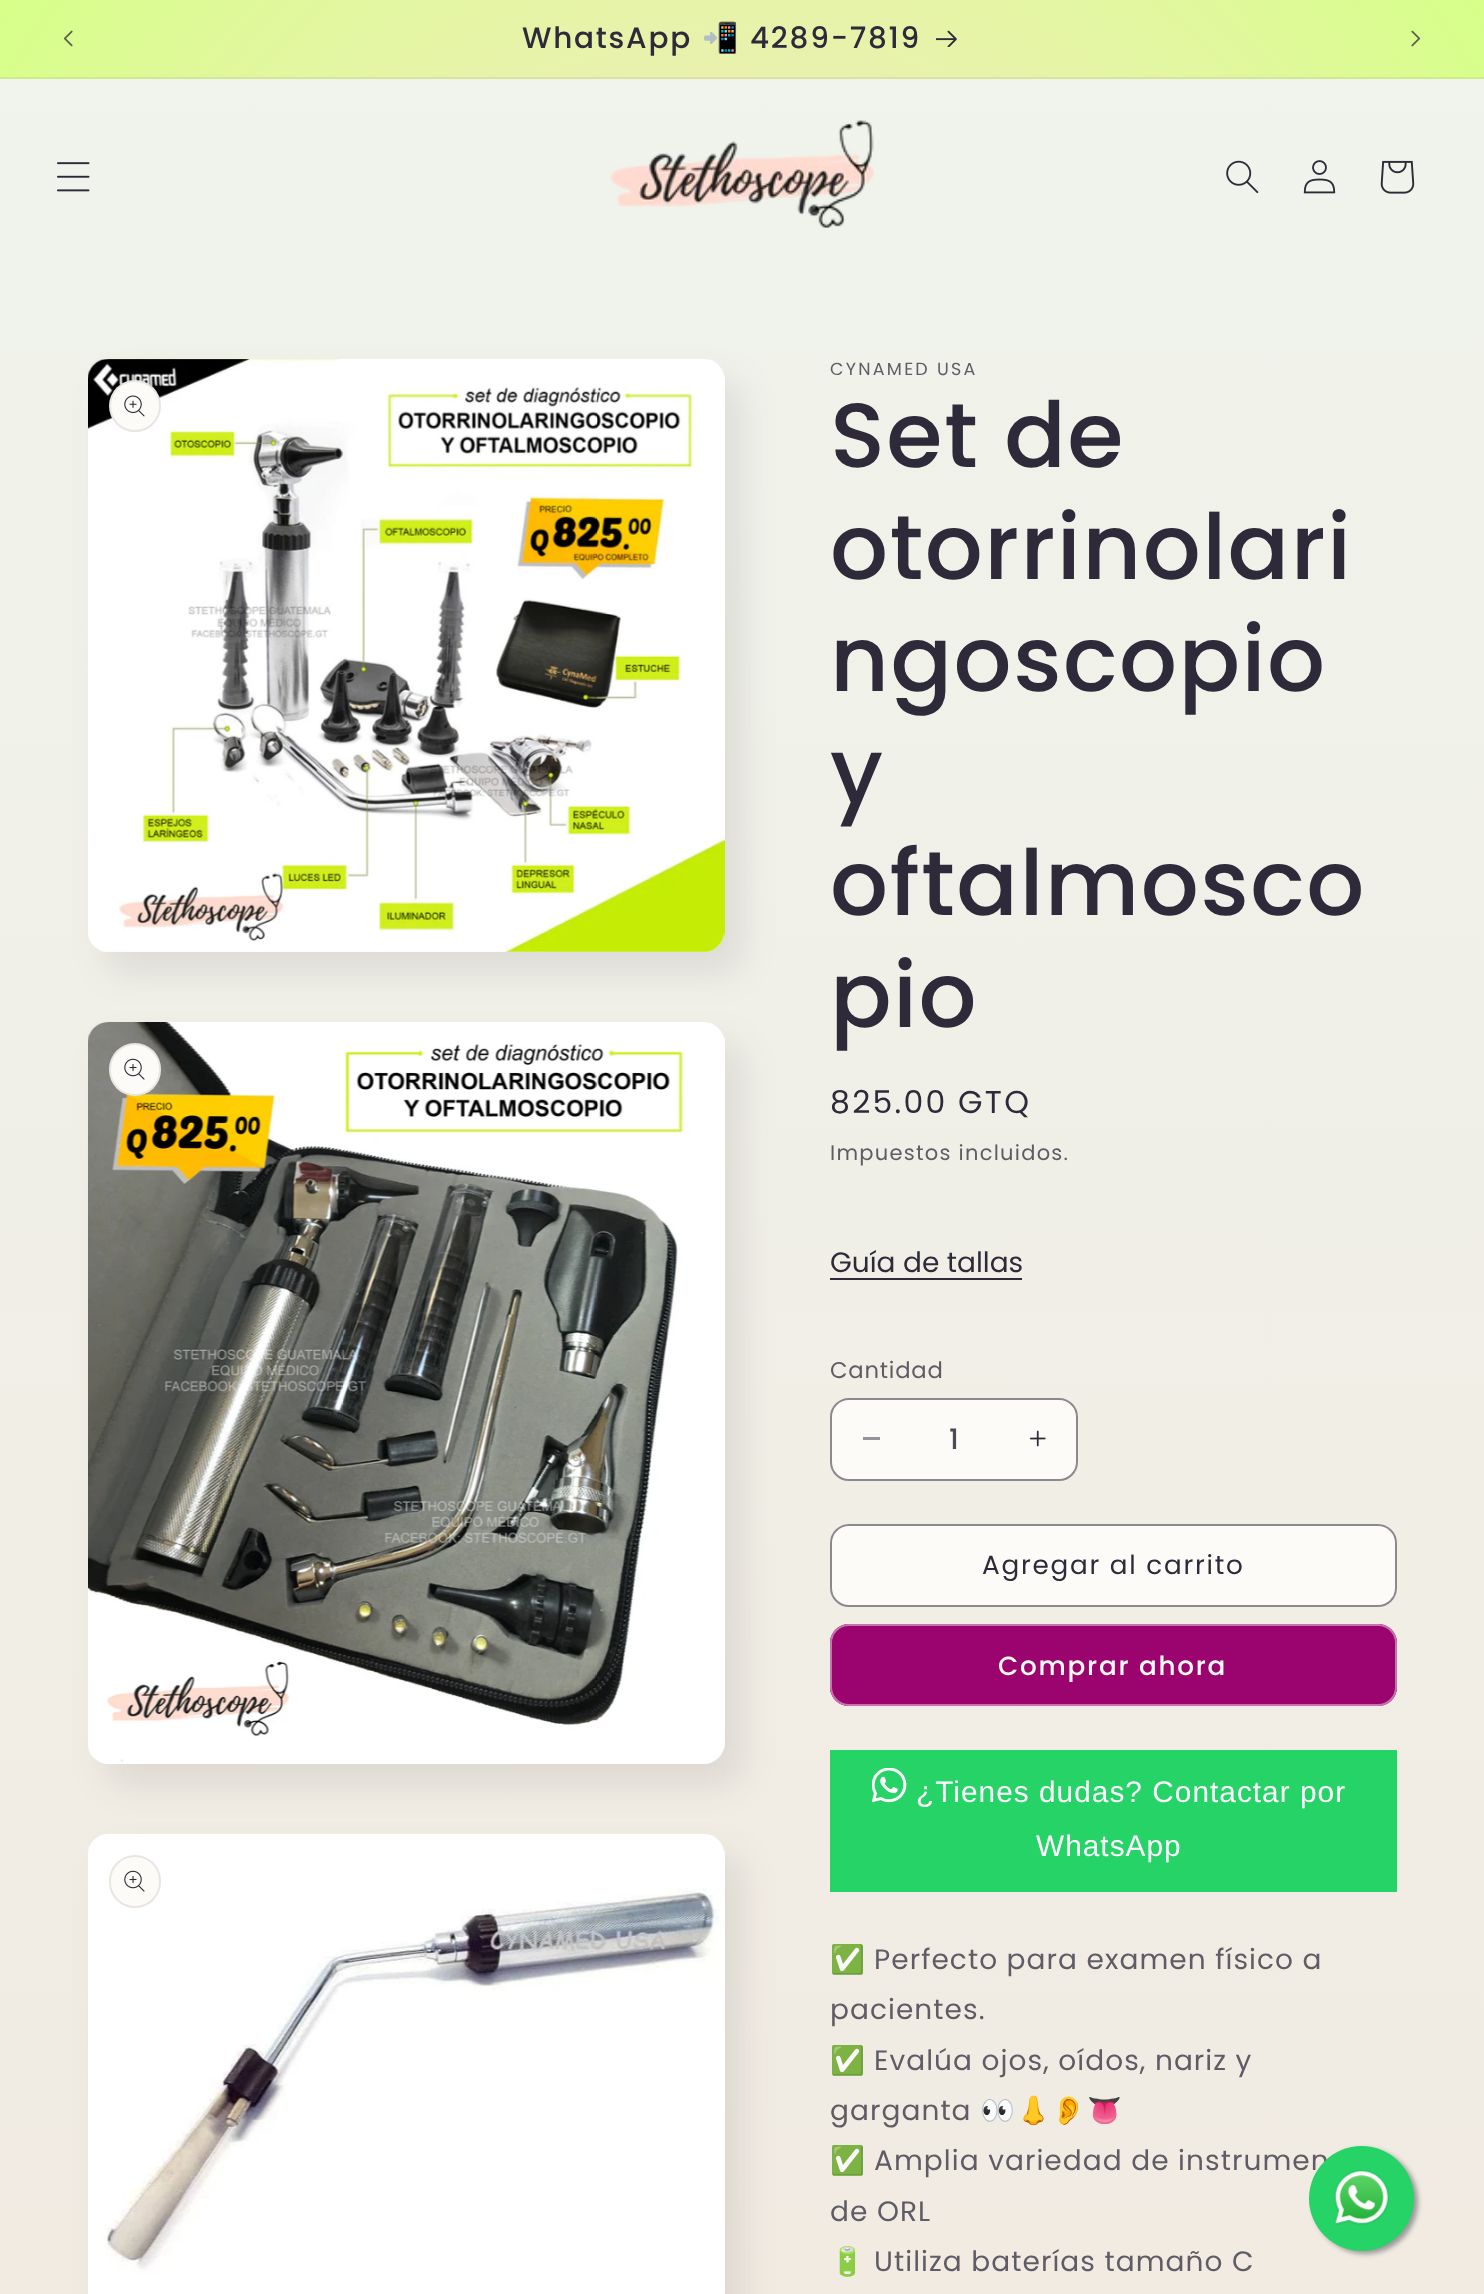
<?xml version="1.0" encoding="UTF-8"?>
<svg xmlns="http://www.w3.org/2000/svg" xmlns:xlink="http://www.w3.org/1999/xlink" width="1484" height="2294">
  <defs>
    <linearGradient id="g1" gradientUnits="userSpaceOnUse" x1="742" y1="0" x2="742" y2="2294"><stop offset="0" stop-color="#f0f4ec" /><stop offset="1" stop-color="#f1ebe2" /></linearGradient>
    <radialGradient id="g2" gradientUnits="userSpaceOnUse" cx="0" cy="0" r="1" gradientTransform="matrix(1049 0 0 1622 742 1147)"><stop offset="0" stop-color="#ffe5e5" /><stop offset="0.25" stop-color="#ffe0da" /><stop offset="1" stop-color="#d7ff89" /></radialGradient>
    <radialGradient id="g3" gradientUnits="userSpaceOnUse" cx="0" cy="0" r="1" gradientTransform="matrix(1049 0 0 1622 742 1147)"><stop offset="0" stop-color="#eed6d7" /><stop offset="0.25" stop-color="#eed1cd" /><stop offset="1" stop-color="#c9ee83" /></radialGradient>
    <clipPath id="clip1"><rect x="88" y="1834" width="637" height="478" rx="21" /></clipPath>
  </defs>
  <rect width="100%" height="100%" fill="#ffffff" />
  <rect y="79" width="1484" height="2215" fill="url(#g1)" />
  <rect width="1484" height="77" fill="url(#g2)" />
  <rect y="77" width="1484" height="2" fill="url(#g3)" />
  <image x="63" y="30" width="10" height="17" xlink:href="image1.png" />
  <image x="936" y="30" width="21" height="17" xlink:href="image2.png" />
  <image x="1411" y="30" width="10" height="17" xlink:href="image3.png" />
  <image x="57" y="162" width="33" height="30" xlink:href="image4.png" />
  <image x="610" y="120" width="264" height="108" xlink:href="image5.png" />
  <image x="1226" y="160" width="33" height="34" xlink:href="image6.png" />
  <image x="1303" y="160" width="33" height="34" xlink:href="image7.png" />
  <image x="1380" y="160" width="35" height="34" xlink:href="image8.png" />
  <rect x="105" y="380" width="637" height="593" rx="21" fill="#2e2a39" fill-opacity="0.1" filter="blur(17.5px)" />
  <rect x="88" y="359" width="637" height="593" rx="21" fill="url(#g1)" />
  <image x="88" y="359" width="637" height="593" xlink:href="image9.png" />
  <circle cx="135" cy="406" r="26" fill="#fdfbf7" />
  <circle cx="135" cy="406" r="25" fill="none" stroke="#2e2a39" stroke-opacity="0.1" stroke-width="2" />
  <image x="124" y="395" width="21" height="22" xlink:href="image10.png" />
  <rect x="105" y="1043" width="637" height="742" rx="21" fill="#2e2a39" fill-opacity="0.1" filter="blur(17.5px)" />
  <rect x="88" y="1022" width="637" height="742" rx="21" fill="url(#g1)" />
  <image x="88" y="1022" width="637" height="742" xlink:href="image11.png" />
  <rect x="109" y="1043" width="52" height="53" rx="26" fill="#fdfbf7" />
  <rect x="110" y="1044" width="50" height="51" rx="25" fill="none" stroke="#2e2a39" stroke-opacity="0.1" stroke-width="2" />
  <image x="124" y="1058" width="21" height="22" xlink:href="image12.png" />
  <rect x="105" y="1855" width="637" height="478" rx="21" fill="#2e2a39" fill-opacity="0.1" filter="blur(17.5px)" />
  <rect x="88" y="1834" width="637" height="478" rx="21" fill="#fdfbf7" />
  <g clip-path="url(#clip1)">
    <path d="M 109 1834 h 595 c 11.5 0 21 9.5 21 21 v 439 h -637 v -439 c 0 -11.5 9.5 -21 21 -21 z" fill="url(#g1)" />
  </g>
  <image x="88" y="1834" width="637" height="460" xlink:href="image13.png" />
  <rect x="109" y="1855" width="52" height="53" rx="26" fill="#fdfbf7" />
  <rect x="110" y="1856" width="50" height="51" rx="25" fill="none" stroke="#2e2a39" stroke-opacity="0.1" stroke-width="2" />
  <image x="124" y="1870" width="21" height="22" xlink:href="image12.png" />
  <rect x="830" y="1278" width="192" height="2" fill="#2e2a39" />
  <rect x="830" y="1398" width="248" height="83" rx="19" fill="#fdfbf7" />
  <rect x="863" y="1437" width="17" height="3" fill="#969398" />
  <image x="1029" y="1430" width="17" height="17" xlink:href="image14.png" />
  <rect x="831" y="1399" width="246" height="81" rx="18" fill="none" stroke="#2e2a39" stroke-opacity="0.55" stroke-width="2" />
  <rect x="830" y="1524" width="567" height="83" rx="19" fill="#fdfbf7" />
  <rect x="831" y="1525" width="565" height="81" rx="18" fill="none" stroke="#fdfbf7" stroke-width="2" />
  <rect x="831" y="1525" width="565" height="81" rx="18" fill="none" stroke="#8b888e" stroke-width="2" />
  <rect x="830" y="1624" width="567" height="82" rx="19" fill="#9b046f" />
  <rect x="831" y="1625" width="565" height="80" rx="18" fill="none" stroke="#9b046f" stroke-width="2" />
  <rect x="831" y="1625" width="565" height="80" rx="18" fill="none" stroke="#fdfbf7" stroke-opacity="0.45" stroke-width="2" />
  <rect x="830" y="1750" width="567" height="142" fill="#25d366" />
  <image x="872" y="1768" width="35" height="35" xlink:href="image15.png" />
  <rect x="1313" y="2149" width="105" height="105" rx="52.5" fill="#999999" filter="blur(2.5px)" />
  <text x="522" y="48" style="font-family: Poppins; font-size: 29.5px; font-weight: 500; letter-spacing: 1.75px; fill: #2e2a39">WhatsApp</text>
  <text x="702" y="48" style="font-family: Noto Color Emoji; font-size: 29.5px; letter-spacing: 1.75px; fill: #2e2a39">📲</text>
  <text x="750" y="48" style="font-family: Poppins; font-size: 29.5px; font-weight: 500; letter-spacing: 1.75px; fill: #2e2a39">4289-7819</text>
  <text x="830" y="375" style="font-family: Poppins; font-size: 17.5px; letter-spacing: 2.25px; fill: #5f5c65">CYNAMED USA</text>
  <text x="830" y="467" style="font-family: Poppins; font-size: 91px; font-weight: 500; letter-spacing: 1.4px; fill: #2e2a39">Set de</text>
  <text x="830" y="579" style="font-family: Poppins; font-size: 91px; font-weight: 500; letter-spacing: 1.4px; fill: #2e2a39">otorrinolari</text>
  <text x="830" y="691" style="font-family: Poppins; font-size: 91px; font-weight: 500; letter-spacing: 1.4px; fill: #2e2a39">ngoscopio</text>
  <text x="830" y="803" style="font-family: Poppins; font-size: 91px; font-weight: 500; letter-spacing: 1.4px; fill: #2e2a39">y</text>
  <text x="830" y="915" style="font-family: Poppins; font-size: 91px; font-weight: 500; letter-spacing: 1.4px; fill: #2e2a39">oftalmosco</text>
  <text x="830" y="1027" style="font-family: Poppins; font-size: 91px; font-weight: 500; letter-spacing: 1.4px; fill: #2e2a39">pio</text>
  <text x="830" y="1113" style="font-family: Poppins; font-size: 31.5px; letter-spacing: 2.25px; fill: #2e2a39">825.00 GTQ</text>
  <text x="830" y="1160" style="font-family: Poppins; font-size: 21px; letter-spacing: 1.25px; fill: #5f5c65">Impuestos incluidos.</text>
  <text x="830" y="1272" style="font-family: Poppins; font-size: 28px; fill: #2e2a39">Guía de tallas</text>
  <text x="830" y="1378" style="font-family: Poppins; font-size: 22.75px; letter-spacing: 0.75px; fill: #5f5c65">Cantidad</text>
  <text x="949" y="1449" style="font-family: Poppins; font-size: 28px; font-weight: 500; fill: #4d4956">1</text>
  <text x="982" y="1574" style="font-family: Poppins; font-size: 26.25px; letter-spacing: 1.75px; fill: #2e2a39">Agregar al carrito</text>
  <text x="998" y="1675" style="font-family: Poppins; font-size: 26.25px; font-weight: 500; letter-spacing: 1.75px; fill: #fdfbf7">Comprar ahora</text>
  <text x="916" y="1802" style="font-family: Liberation Sans; font-size: 29.75px; letter-spacing: 1.05px; fill: #ffffff">¿Tienes dudas? Contactar por</text>
  <text x="1036" y="1856" style="font-family: Liberation Sans; font-size: 29.75px; letter-spacing: 1.05px; fill: #ffffff">WhatsApp</text>
  <text x="830" y="1969" style="font-family: Noto Color Emoji; font-size: 28px; letter-spacing: 1.05px; fill: #5f5c65">✅</text>
  <text x="874" y="1969" style="font-family: Poppins; font-size: 28px; letter-spacing: 1.05px; fill: #5f5c65">Perfecto para examen físico a</text>
  <text x="830" y="2019" style="font-family: Poppins; font-size: 28px; letter-spacing: 1.05px; fill: #5f5c65">pacientes.</text>
  <text x="830" y="2070" style="font-family: Noto Color Emoji; font-size: 28px; letter-spacing: 1.05px; fill: #5f5c65">✅</text>
  <text x="874" y="2070" style="font-family: Poppins; font-size: 28px; letter-spacing: 1.05px; fill: #5f5c65">Evalúa ojos, oídos, nariz y</text>
  <text x="830" y="2120" style="font-family: Poppins; font-size: 28px; letter-spacing: 1.05px; fill: #5f5c65">garganta</text>
  <text x="980" y="2120" style="font-family: Noto Color Emoji; font-size: 28px; letter-spacing: 1.05px; fill: #5f5c65">👀👃👂👅</text>
  <text x="830" y="2170" style="font-family: Noto Color Emoji; font-size: 28px; letter-spacing: 1.05px; fill: #5f5c65">✅</text>
  <text x="874" y="2170" style="font-family: Poppins; font-size: 28px; letter-spacing: 1.05px; fill: #5f5c65">Amplia variedad de instrumen</text>
  <text x="830" y="2221" style="font-family: Poppins; font-size: 28px; letter-spacing: 1.05px; fill: #5f5c65">de ORL</text>
  <text x="830" y="2271" style="font-family: Noto Color Emoji; font-size: 28px; letter-spacing: 1.05px; fill: #5f5c65">🔋</text>
  <text x="874" y="2271" style="font-family: Poppins; font-size: 28px; letter-spacing: 1.05px; fill: #5f5c65">Utiliza baterías tamaño C</text>
  <circle cx="1361.5" cy="2198.5" r="52.5" fill="#25d366" />
  <image x="1334" y="2170" width="55" height="55" xlink:href="image16.png" />
</svg>
